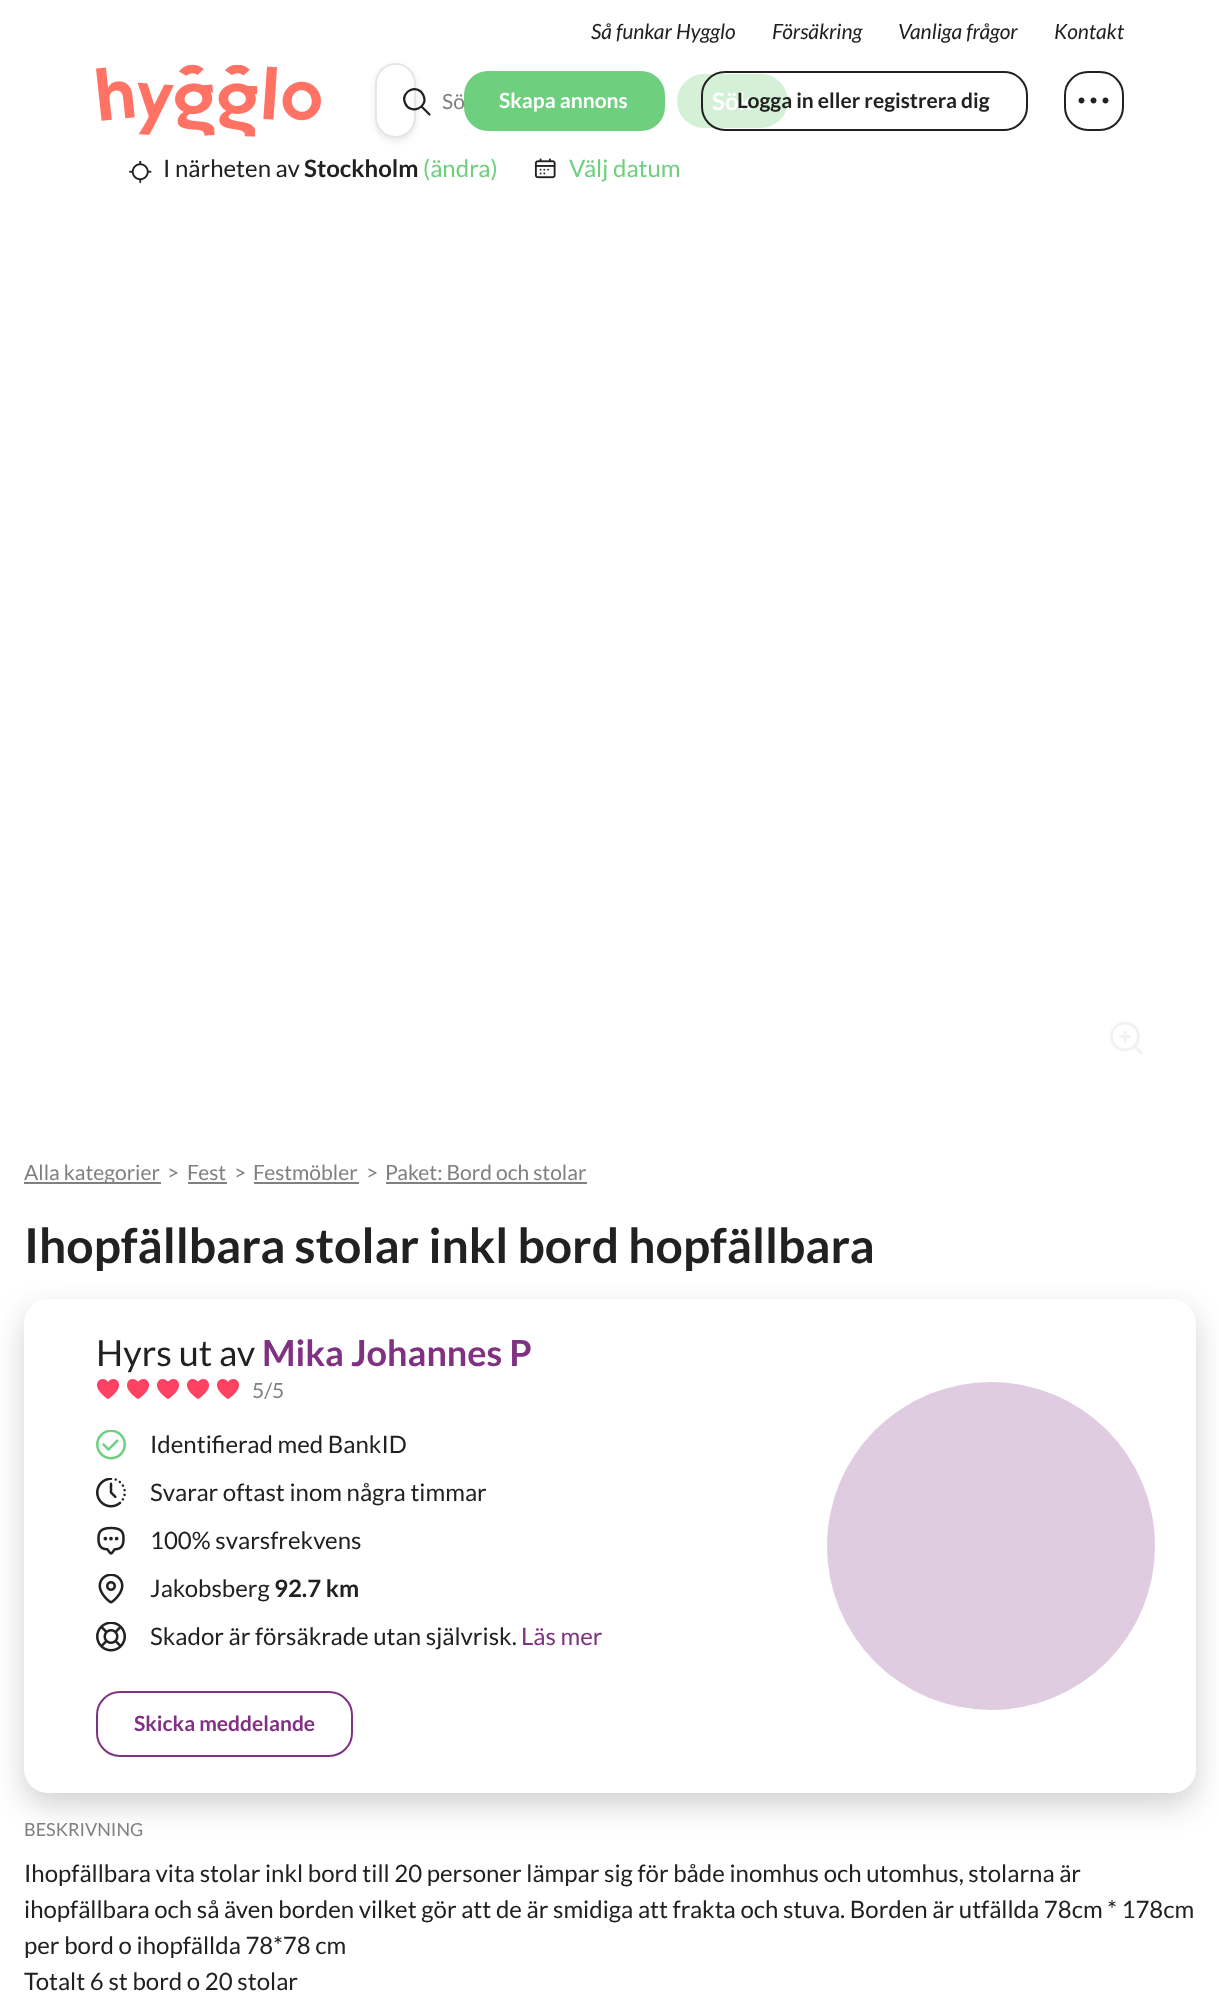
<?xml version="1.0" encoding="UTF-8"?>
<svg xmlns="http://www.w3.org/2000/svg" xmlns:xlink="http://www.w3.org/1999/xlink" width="1219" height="2012">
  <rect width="100%" height="100%" fill="#ffffff" />
  <image x="96" y="65" width="225" height="72" xlink:href="image1.png" />
  <rect x="1065" y="72" width="58" height="58" rx="23" fill="none" stroke="#212121" stroke-width="2" />
  <image x="1078" y="97" width="31" height="7" xlink:href="image2.png" />
  <rect x="375" y="66" width="41" height="75" rx="20.5" fill="#1a1a1a" fill-opacity="0.1" filter="blur(3px)" />
  <rect x="376" y="64" width="39" height="73" rx="19.5" fill="#ffffff" stroke="#e6e6e6" stroke-width="2" />
  <path d="M 405 103 c 5 12.5 24 4.5 18.5 -7.5 c -5 -12.5 -23.5 -4.5 -18.5 7.5 z m 16.5 3.5 l 8 8" fill="none" stroke="#212121" stroke-width="2.2" stroke-linecap="round" stroke-linejoin="round" />
  <rect x="677" y="74" width="111" height="54" rx="27" fill="#d4f1d8" />
  <image x="129" y="161" width="23" height="22" xlink:href="image3.png" />
  <image x="534" y="158" width="22" height="21" xlink:href="image4.png" />
  <rect x="464" y="71" width="201" height="60" rx="24" fill="#6ecf7e" />
  <rect x="702" y="72" width="325" height="58" rx="23" fill="none" stroke="#212121" stroke-width="2" />
  <image x="1110" y="1021" width="33" height="34" xlink:href="image5.png" />
  <rect x="24" y="1182" width="137" height="2" fill="#808080" />
  <rect x="188" y="1182" width="39" height="2" fill="#808080" />
  <rect x="254" y="1182" width="105" height="2" fill="#808080" />
  <rect x="386" y="1182" width="201" height="2" fill="#808080" />
  <rect x="24" y="1311" width="1172" height="494" rx="24" fill="#1a1a1a" fill-opacity="0.2" filter="blur(15px)" />
  <rect x="24" y="1299" width="1172" height="494" rx="24" fill="#ffffff" />
  <image x="97" y="1379" width="22" height="20" xlink:href="image6.png" />
  <image x="127" y="1379" width="22" height="20" xlink:href="image6.png" />
  <image x="157" y="1379" width="22" height="20" xlink:href="image6.png" />
  <image x="187" y="1379" width="22" height="20" xlink:href="image6.png" />
  <image x="217" y="1379" width="22" height="20" xlink:href="image6.png" />
  <image x="97" y="1379" width="22" height="20" xlink:href="image7.png" />
  <image x="127" y="1379" width="22" height="20" xlink:href="image7.png" />
  <image x="157" y="1379" width="22" height="20" xlink:href="image7.png" />
  <image x="187" y="1379" width="22" height="20" xlink:href="image7.png" />
  <image x="217" y="1379" width="22" height="20" xlink:href="image7.png" />
  <image x="96" y="1430" width="30" height="30" xlink:href="image8.png" />
  <image x="96" y="1478" width="30" height="30" xlink:href="image9.png" />
  <image x="97" y="1526" width="28" height="29" xlink:href="image10.png" />
  <image x="98" y="1574" width="26" height="30" xlink:href="image11.png" />
  <image x="96" y="1622" width="30" height="30" xlink:href="image12.png" />
  <rect x="97" y="1692" width="255" height="64" rx="23" fill="none" stroke="#813181" stroke-width="2" />
  <circle cx="991" cy="1546" r="164" fill="#e0cce0" />
  <text x="591" y="39" style="font-family: Lato; font-size: 21px; font-style: italic; fill: #212121">Så funkar Hygglo</text>
  <text x="772" y="39" style="font-family: Lato; font-size: 21px; font-style: italic; fill: #212121">Försäkring</text>
  <text x="898" y="39" style="font-family: Lato; font-size: 21px; font-style: italic; fill: #212121">Vanliga frågor</text>
  <text x="1054" y="39" style="font-family: Lato; font-size: 21px; font-style: italic; fill: #212121">Kontakt</text>
  <text x="442" y="109" style="font-family: Lato; font-size: 21px; fill: #808080">Sö</text>
  <text x="712" y="110" style="font-family: Lato; font-size: 24px; font-weight: bold; fill: #ffffff">Sök</text>
  <text x="163" y="177" style="font-family: Lato; font-size: 24px; fill: #212121">I närheten av</text>
  <text x="304" y="177" style="font-family: Lato; font-size: 24px; font-weight: bold; fill: #212121">Stockholm</text>
  <text x="423" y="177" style="font-family: Lato; font-size: 24px; fill: #6ecf7e">(ändra)</text>
  <text x="569" y="177" style="font-family: Lato; font-size: 24px; fill: #6ecf7e">Välj datum</text>
  <text x="499" y="108" style="font-family: Lato; font-size: 21px; font-weight: bold; fill: #ffffff">Skapa annons</text>
  <text x="737" y="108" style="font-family: Lato; font-size: 21px; font-weight: bold; fill: #212121">Logga in eller registrera dig</text>
  <text x="24" y="1180" style="font-family: Lato; font-size: 21px; fill: #808080">Alla kategorier</text>
  <text x="167" y="1180" style="font-family: Lato; font-size: 21px; fill: #808080">&gt;</text>
  <text x="187" y="1180" style="font-family: Lato; font-size: 21px; fill: #808080">Fest</text>
  <text x="234" y="1180" style="font-family: Lato; font-size: 21px; fill: #808080">&gt;</text>
  <text x="253" y="1180" style="font-family: Lato; font-size: 21px; fill: #808080">Festmöbler</text>
  <text x="366" y="1180" style="font-family: Lato; font-size: 21px; fill: #808080">&gt;</text>
  <text x="385" y="1180" style="font-family: Lato; font-size: 21px; fill: #808080">Paket: Bord och stolar</text>
  <text x="24" y="1263" style="font-family: Lato; font-size: 48px; font-weight: bold; fill: #212121">Ihopfällbara stolar inkl bord hopfällbara</text>
  <text x="96" y="1366" style="font-family: Lato; font-size: 36px; fill: #212121">Hyrs ut av</text>
  <text x="262" y="1366" style="font-family: Lato; font-size: 36px; font-weight: bold; fill: #813181">Mika Johannes P</text>
  <text x="252" y="1398" style="font-family: Lato; font-size: 21px; fill: #808080">5/5</text>
  <text x="150" y="1453" style="font-family: Lato; font-size: 24px; fill: #212121">Identifierad med BankID</text>
  <text x="150" y="1501" style="font-family: Lato; font-size: 24px; fill: #212121">Svarar oftast inom några timmar</text>
  <text x="150" y="1549" style="font-family: Lato; font-size: 24px; fill: #212121">100% svarsfrekvens</text>
  <text x="150" y="1597" style="font-family: Lato; font-size: 24px; fill: #212121">Jakobsberg</text>
  <text x="274" y="1597" style="font-family: Lato; font-size: 24px; font-weight: bold; fill: #212121">92.7 km</text>
  <text x="150" y="1645" style="font-family: Lato; font-size: 24px; fill: #212121">Skador är försäkrade utan självrisk.</text>
  <text x="521" y="1645" style="font-family: Lato; font-size: 24px; fill: #813181">Läs mer</text>
  <text x="134" y="1731" style="font-family: Lato; font-size: 21px; font-weight: bold; fill: #813181">Skicka meddelande</text>
  <text x="24" y="1836" style="font-family: Lato; font-size: 18px; fill: #808080">BESKRIVNING</text>
  <text x="24" y="1882" style="font-family: Lato; font-size: 24px; fill: #212121">Ihopfällbara vita stolar inkl bord till 20 personer lämpar sig för både inomhus och utomhus, stolarna är</text>
  <text x="24" y="1918" style="font-family: Lato; font-size: 24px; fill: #212121">ihopfällbara och så även borden vilket gör att de är smidiga att frakta och stuva. Borden är utfällda 78cm * 178cm</text>
  <text x="24" y="1954" style="font-family: Lato; font-size: 24px; fill: #212121">per bord o ihopfällda 78*78 cm</text>
  <text x="24" y="1990" style="font-family: Lato; font-size: 24px; fill: #212121">Totalt 6 st bord o 20 stolar</text>
</svg>
